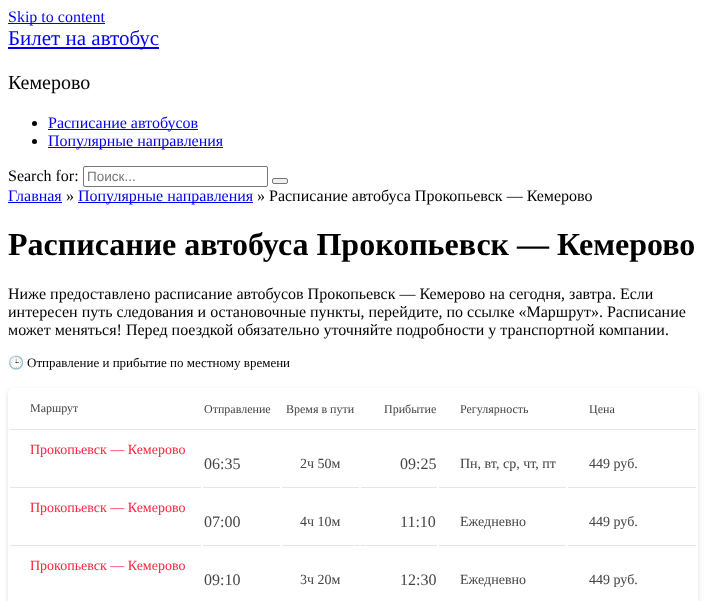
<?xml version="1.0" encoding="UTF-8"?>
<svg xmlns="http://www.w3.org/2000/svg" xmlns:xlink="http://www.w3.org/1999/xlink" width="706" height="601">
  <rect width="100%" height="100%" fill="#ffffff" />
  <rect x="8" y="23" width="97" height="1" fill="#0000ee" />
  <rect x="8" y="47" width="151" height="2" fill="#0000ee" />
  <circle cx="34.5" cy="123.5" r="2.5" fill="#000000" />
  <rect x="48" y="129" width="150" height="1" fill="#0000ee" />
  <circle cx="34.5" cy="141.5" r="2.5" fill="#000000" />
  <rect x="48" y="147" width="175" height="1" fill="#0000ee" />
  <rect x="83.5" y="166.5" width="184" height="20" rx="1.5" fill="none" stroke="#767676" />
  <rect x="272.5" y="178.5" width="15" height="5" rx="1.5" fill="#efefef" stroke="#767676" />
  <rect x="8" y="202" width="54" height="1" fill="#0000ee" />
  <rect x="78" y="202" width="175" height="1" fill="#0000ee" />
  <rect x="8" y="390" width="690" height="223" rx="6" fill="#000000" fill-opacity="0.15" filter="blur(2px)" />
  <rect x="8" y="388" width="690" height="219" rx="6" fill="#ffffff" />
  <rect x="10" y="429" width="686" height="1" fill="#e5e5e5" />
  <rect x="10" y="487" width="191" height="1" fill="#e5e5e5" />
  <rect x="203" y="487" width="77" height="1" fill="#e5e5e5" />
  <rect x="282" y="487" width="77" height="1" fill="#e5e5e5" />
  <rect x="361" y="487" width="76" height="1" fill="#e5e5e5" />
  <rect x="439" y="487" width="127" height="1" fill="#e5e5e5" />
  <rect x="568" y="487" width="128" height="1" fill="#e5e5e5" />
  <rect x="10" y="545" width="191" height="1" fill="#e5e5e5" />
  <rect x="203" y="545" width="77" height="1" fill="#e5e5e5" />
  <rect x="282" y="545" width="77" height="1" fill="#e5e5e5" />
  <rect x="361" y="545" width="76" height="1" fill="#e5e5e5" />
  <rect x="439" y="545" width="127" height="1" fill="#e5e5e5" />
  <rect x="568" y="545" width="128" height="1" fill="#e5e5e5" />
  <text x="8" y="22" style="font-family: Liberation Serif; font-size: 16px; fill: #0000ee">Skip to content</text>
  <text x="8" y="45" style="font-family: Liberation Serif; font-size: 21px; fill: #0000ee">Билет на автобус</text>
  <text x="8" y="89" style="font-family: Liberation Serif; font-size: 20px; fill: #000000">Кемерово</text>
  <text x="48" y="128" style="font-family: Liberation Serif; font-size: 16px; fill: #0000ee">Расписание автобусов</text>
  <text x="48" y="146" style="font-family: Liberation Serif; font-size: 16px; fill: #0000ee">Популярные направления</text>
  <text x="8" y="181" style="font-family: Liberation Serif; font-size: 16px; fill: #000000">Search for:</text>
  <text x="87" y="181" style="font-family: Liberation Sans; font-size: 13.5px; fill: #757575">Поиск...</text>
  <text x="8" y="201" style="font-family: Liberation Serif; font-size: 16px; fill: #0000ee">Главная</text>
  <text x="66" y="201" style="font-family: Liberation Serif; font-size: 16px; fill: #000000">»</text>
  <text x="78" y="201" style="font-family: Liberation Serif; font-size: 16px; fill: #0000ee">Популярные направления</text>
  <text x="257" y="201" style="font-family: Liberation Serif; font-size: 16px; fill: #000000">» Расписание автобуса Прокопьевск — Кемерово</text>
  <text x="8" y="255" style="font-family: Liberation Serif; font-size: 32px; font-weight: bold; fill: #000000">Расписание автобуса Прокопьевск — Кемерово</text>
  <text x="8" y="299" style="font-family: Liberation Serif; font-size: 16px; fill: #000000">Ниже предоставлено расписание автобусов Прокопьевск — Кемерово на сегодня, завтра. Если</text>
  <text x="8" y="317" style="font-family: Liberation Serif; font-size: 16px; fill: #000000">интересен путь следования и остановочные пункты, перейдите, по ссылке «Маршрут». Расписание</text>
  <text x="8" y="335" style="font-family: Liberation Serif; font-size: 16px; fill: #000000">может меняться! Перед поездкой обязательно уточняйте подробности у транспортной компании.</text>
  <text x="8" y="367" style="font-family: Noto Color Emoji; font-size: 13px; fill: #000000">🕒</text>
  <text x="27" y="367" style="font-family: Liberation Serif; font-size: 13px; fill: #000000">Отправление и прибытие по местному времени</text>
  <text x="30" y="412" style="font-family: Liberation Serif; font-size: 12px; fill: #424543">Маршрут</text>
  <text x="204" y="413" style="font-family: Liberation Serif; font-size: 12px; fill: #424543">Отправление</text>
  <text x="286" y="413" style="font-family: Liberation Serif; font-size: 12px; fill: #424543">Время в пути</text>
  <text x="384" y="413" style="font-family: Liberation Serif; font-size: 12px; fill: #424543">Прибытие</text>
  <text x="460" y="413" style="font-family: Liberation Serif; font-size: 12px; fill: #424543">Регулярность</text>
  <text x="589" y="413" style="font-family: Liberation Serif; font-size: 12px; fill: #424543">Цена</text>
  <text x="30" y="454" style="font-family: Liberation Serif; font-size: 14px; fill: #f9253f">Прокопьевск — Кемерово</text>
  <text x="204" y="469" style="font-family: Liberation Serif; font-size: 16px; fill: #424543">06:35</text>
  <text x="300" y="468" style="font-family: Liberation Serif; font-size: 14px; fill: #424543">2ч 50м</text>
  <text x="400" y="469" style="font-family: Liberation Serif; font-size: 16px; fill: #424543">09:25</text>
  <text x="460" y="468" style="font-family: Liberation Serif; font-size: 14px; fill: #424543">Пн, вт, ср, чт, пт</text>
  <text x="589" y="468" style="font-family: Liberation Serif; font-size: 14px; fill: #424543">449 руб.</text>
  <text x="30" y="512" style="font-family: Liberation Serif; font-size: 14px; fill: #f9253f">Прокопьевск — Кемерово</text>
  <text x="204" y="527" style="font-family: Liberation Serif; font-size: 16px; fill: #424543">07:00</text>
  <text x="300" y="526" style="font-family: Liberation Serif; font-size: 14px; fill: #424543">4ч 10м</text>
  <text x="400" y="527" style="font-family: Liberation Serif; font-size: 16px; fill: #424543">11:10</text>
  <text x="460" y="526" style="font-family: Liberation Serif; font-size: 14px; fill: #424543">Ежедневно</text>
  <text x="589" y="526" style="font-family: Liberation Serif; font-size: 14px; fill: #424543">449 руб.</text>
  <text x="30" y="570" style="font-family: Liberation Serif; font-size: 14px; fill: #f9253f">Прокопьевск — Кемерово</text>
  <text x="204" y="585" style="font-family: Liberation Serif; font-size: 16px; fill: #424543">09:10</text>
  <text x="300" y="584" style="font-family: Liberation Serif; font-size: 14px; fill: #424543">3ч 20м</text>
  <text x="400" y="585" style="font-family: Liberation Serif; font-size: 16px; fill: #424543">12:30</text>
  <text x="460" y="584" style="font-family: Liberation Serif; font-size: 14px; fill: #424543">Ежедневно</text>
  <text x="589" y="584" style="font-family: Liberation Serif; font-size: 14px; fill: #424543">449 руб.</text>
</svg>
